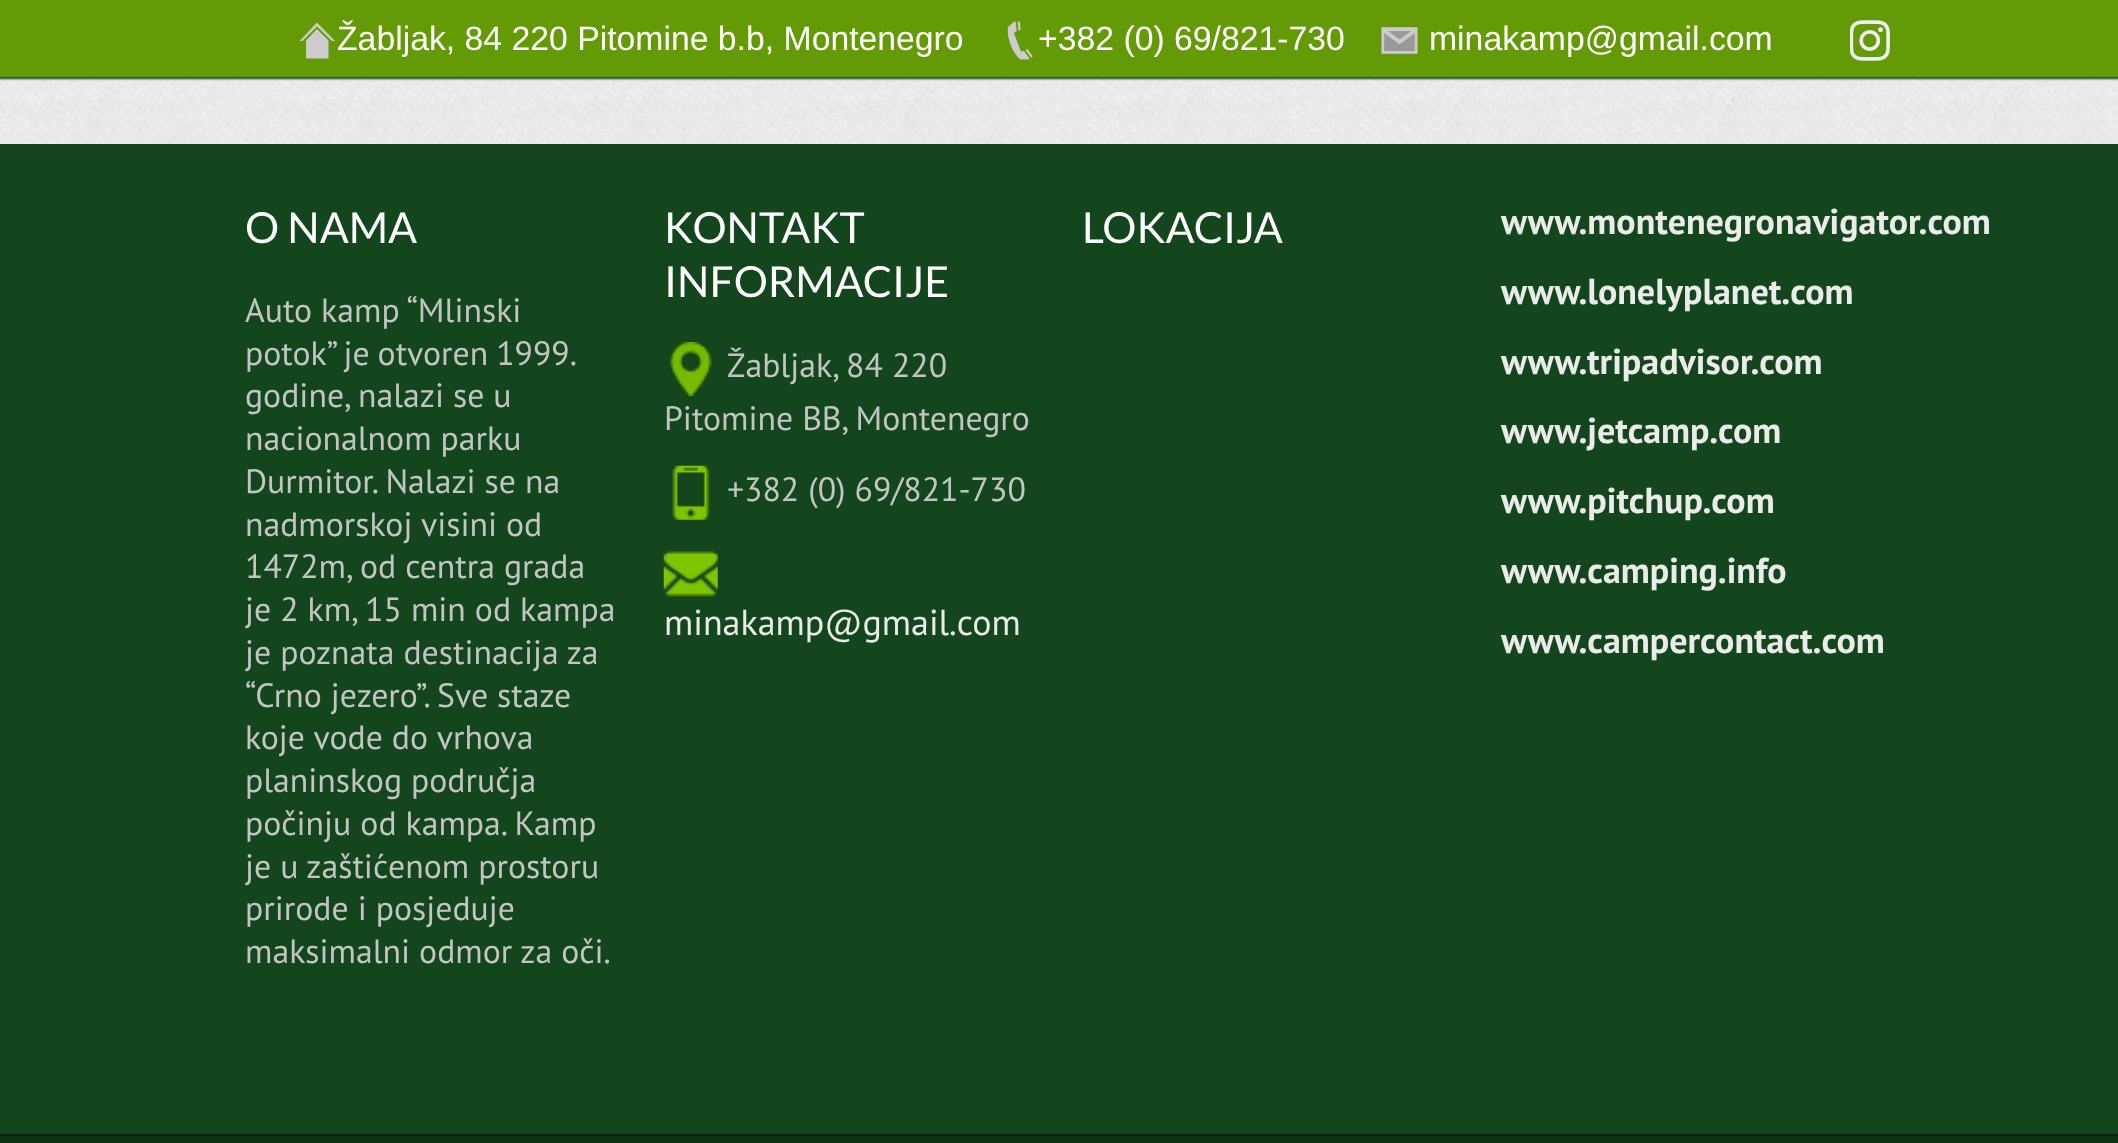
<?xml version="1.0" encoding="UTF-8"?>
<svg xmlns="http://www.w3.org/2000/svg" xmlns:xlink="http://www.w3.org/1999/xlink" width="2118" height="1143">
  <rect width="100%" height="100%" fill="#14461d" />
  <image x="0" y="77" width="2118" height="67" xlink:href="image4.png" />
  <rect x="-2" y="-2" width="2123" height="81" fill="#14461d" filter="blur(1px)" />
  <rect width="2118" height="77" fill="#659a07" />
  <path d="M 335 41 h -3 l -15 -14.5 l -14.5 14.5 h -3 l 17.5 -18.5 z m -6.5 -0.5 v 18 h -22.5 v -18 l 11 -11.5 z" fill="#cccccc" />
  <image x="1007" y="21" width="26" height="39" xlink:href="image1.png" />
  <image x="1381" y="27" width="37" height="27" xlink:href="image2.png" />
  <image x="1850" y="20" width="40" height="41" xlink:href="image3.png" />
  <image x="670" y="342" width="42" height="54" xlink:href="image5.png" />
  <image x="672" y="465" width="38" height="55" xlink:href="image6.png" />
  <image x="663" y="550" width="55" height="47" xlink:href="image7.png" />
  <rect y="1136" width="2118" height="7" fill="#0e3114" />
  <rect y="1134" width="2118" height="2" fill="#1a1a1a" />
  <text x="337" y="50" style="font-family: Liberation Sans; font-size: 33.75px; fill: #ffffff">Žabljak, 84 220 Pitomine b.b, Montenegro</text>
  <text x="1038" y="50" style="font-family: Liberation Sans; font-size: 33.75px; fill: #ffffff">+382 (0) 69/821-730</text>
  <text x="1429" y="50" style="font-family: Liberation Sans; font-size: 33.75px; fill: #ffffff">minakamp@gmail.com</text>
  <text x="245" y="243" style="font-family: Lato; font-size: 42.75px; fill: #ffffff">O NAMA</text>
  <text x="245" y="322" style="font-family: PT Sans; font-size: 33.75px; fill: #c4c4c4">Auto kamp “Mlinski</text>
  <text x="245" y="365" word-spacing="-1" style="font-family: PT Sans; font-size: 33.75px; fill: #c4c4c4">potok” je otvoren 1999.</text>
  <text x="245" y="407" style="font-family: PT Sans; font-size: 33.75px; fill: #c4c4c4">godine, nalazi se u</text>
  <text x="245" y="450" style="font-family: PT Sans; font-size: 33.75px; fill: #c4c4c4">nacionalnom parku</text>
  <text x="245" y="493" style="font-family: PT Sans; font-size: 33.75px; fill: #c4c4c4">Durmitor. Nalazi se na</text>
  <text x="245" y="536" style="font-family: PT Sans; font-size: 33.75px; fill: #c4c4c4">nadmorskoj visini od</text>
  <text x="245" y="578" style="font-family: PT Sans; font-size: 33.75px; fill: #c4c4c4">1472m, od centra grada</text>
  <text x="245" y="621" style="font-family: PT Sans; font-size: 33.75px; fill: #c4c4c4">je 2 km, 15 min od kampa</text>
  <text x="245" y="664" style="font-family: PT Sans; font-size: 33.75px; fill: #c4c4c4">je poznata destinacija za</text>
  <text x="245" y="707" style="font-family: PT Sans; font-size: 33.75px; fill: #c4c4c4">“Crno jezero”. Sve staze</text>
  <text x="245" y="749" style="font-family: PT Sans; font-size: 33.75px; fill: #c4c4c4">koje vode do vrhova</text>
  <text x="245" y="792" style="font-family: PT Sans; font-size: 33.75px; fill: #c4c4c4">planinskog područja</text>
  <text x="245" y="835" style="font-family: PT Sans; font-size: 33.75px; fill: #c4c4c4">počinju od kampa. Kamp</text>
  <text x="245" y="878" style="font-family: PT Sans; font-size: 33.75px; fill: #c4c4c4">je u zaštićenom prostoru</text>
  <text x="245" y="920" style="font-family: PT Sans; font-size: 33.75px; fill: #c4c4c4">prirode i posjeduje</text>
  <text x="245" y="963" style="font-family: PT Sans; font-size: 33.75px; fill: #c4c4c4">maksimalni odmor za oči.</text>
  <text x="664" y="243" style="font-family: Lato; font-size: 42.75px; fill: #ffffff">KONTAKT</text>
  <text x="664" y="297" style="font-family: Lato; font-size: 42.75px; fill: #ffffff">INFORMACIJE</text>
  <text x="727" y="377" style="font-family: PT Sans; font-size: 33.75px; fill: #c4c4c4">Žabljak, 84 220</text>
  <text x="664" y="430" style="font-family: PT Sans; font-size: 33.75px; fill: #c4c4c4">Pitomine BB, Montenegro</text>
  <text x="727" y="501" style="font-family: PT Sans; font-size: 33.75px; fill: #c4c4c4">+382 (0) 69/821-730</text>
  <text x="664" y="635" style="font-family: PT Sans; font-size: 36px; fill: #ebebeb">minakamp@gmail.com</text>
  <text x="1082" y="243" style="font-family: Lato; font-size: 42.75px; fill: #ffffff">LOKACIJA</text>
  <text x="1501" y="234" style="font-family: PT Sans; font-size: 36px; font-weight: bold; fill: #ebebeb">www.montenegronavigator.com</text>
  <text x="1501" y="304" style="font-family: PT Sans; font-size: 36px; font-weight: bold; fill: #ebebeb">www.lonelyplanet.com</text>
  <text x="1501" y="374" style="font-family: PT Sans; font-size: 36px; font-weight: bold; fill: #ebebeb">www.tripadvisor.com</text>
  <text x="1501" y="443" style="font-family: PT Sans; font-size: 36px; font-weight: bold; fill: #ebebeb">www.jetcamp.com</text>
  <text x="1501" y="513" style="font-family: PT Sans; font-size: 36px; font-weight: bold; fill: #ebebeb">www.pitchup.com</text>
  <text x="1501" y="583" style="font-family: PT Sans; font-size: 36px; font-weight: bold; fill: #ebebeb">www.camping.info</text>
  <text x="1501" y="653" style="font-family: PT Sans; font-size: 36px; font-weight: bold; fill: #ebebeb">www.campercontact.com</text>
</svg>
